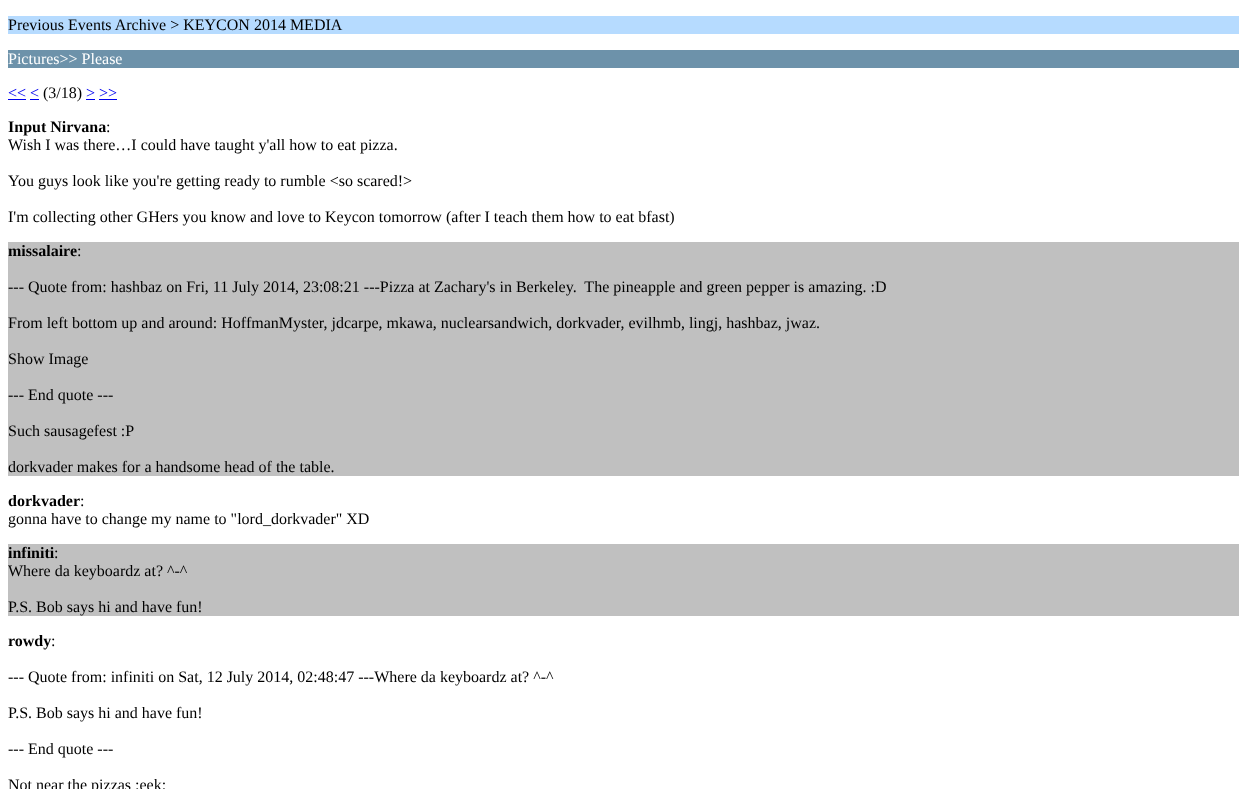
<?xml version="1.0" encoding="UTF-8"?>
<svg xmlns="http://www.w3.org/2000/svg" xmlns:xlink="http://www.w3.org/1999/xlink" width="1247" height="789">
  <rect width="100%" height="100%" fill="#ffffff" />
  <rect x="8" y="16" width="1231" height="18" fill="#b6dbff" />
  <rect x="8" y="50" width="1231" height="18" fill="#6d92aa" />
  <rect x="8" y="99" width="18" height="1" fill="#0000ee" />
  <rect x="86" y="99" width="9" height="1" fill="#0000ee" />
  <rect x="30" y="99" width="9" height="1" fill="#0000ee" />
  <rect x="99" y="99" width="18" height="1" fill="#0000ee" />
  <rect x="8" y="242" width="1231" height="234" fill="#c0c0c0" />
  <rect x="8" y="544" width="1231" height="72" fill="#c0c0c0" />
  <text x="8" y="30" style="font-family: Liberation Serif; font-size: 16px; fill: #000000">Previous Events Archive &gt; KEYCON 2014 MEDIA</text>
  <text x="8" y="64" style="font-family: Liberation Serif; font-size: 16px; fill: #ffffff">Pictures&gt;&gt; Please</text>
  <text x="8" y="98" style="font-family: Liberation Serif; font-size: 16px; fill: #0000ee">&lt;&lt; &lt;</text>
  <text x="43" y="98" style="font-family: Liberation Serif; font-size: 16px; fill: #000000">(3/18)</text>
  <text x="86" y="98" style="font-family: Liberation Serif; font-size: 16px; fill: #0000ee">&gt; &gt;&gt;</text>
  <text x="8" y="132" style="font-family: Liberation Serif; font-size: 16px; font-weight: bold; fill: #000000">Input Nirvana</text>
  <text x="106" y="132" style="font-family: Liberation Serif; font-size: 16px; fill: #000000">:</text>
  <text x="8" y="150" style="font-family: Liberation Serif; font-size: 16px; fill: #000000">Wish I was there…I could have taught y'all how to eat pizza.</text>
  <text x="8" y="186" style="font-family: Liberation Serif; font-size: 16px; fill: #000000">You guys look like you're getting ready to rumble &lt;so scared!&gt;</text>
  <text x="8" y="222" style="font-family: Liberation Serif; font-size: 16px; fill: #000000">I'm collecting other GHers you know and love to Keycon tomorrow (after I teach them how to eat bfast)</text>
  <text x="8" y="256" style="font-family: Liberation Serif; font-size: 16px; font-weight: bold; fill: #000000">missalaire</text>
  <text x="77" y="256" style="font-family: Liberation Serif; font-size: 16px; fill: #000000">:</text>
  <text x="8" y="292" style="font-family: Liberation Serif; font-size: 16px; fill: #000000" xml:space="preserve">--- Quote from: hashbaz on Fri, 11 July 2014, 23:08:21 ---Pizza at Zachary's in Berkeley.  The pineapple and green pepper is amazing. :D</text>
  <text x="8" y="328" style="font-family: Liberation Serif; font-size: 16px; fill: #000000">From left bottom up and around: HoffmanMyster, jdcarpe, mkawa, nuclearsandwich, dorkvader, evilhmb, lingj, hashbaz, jwaz.</text>
  <text x="8" y="364" style="font-family: Liberation Serif; font-size: 16px; fill: #000000">Show Image</text>
  <text x="8" y="400" style="font-family: Liberation Serif; font-size: 16px; fill: #000000">--- End quote ---</text>
  <text x="8" y="436" style="font-family: Liberation Serif; font-size: 16px; fill: #000000">Such sausagefest :P</text>
  <text x="8" y="472" style="font-family: Liberation Serif; font-size: 16px; fill: #000000">dorkvader makes for a handsome head of the table.</text>
  <text x="8" y="506" style="font-family: Liberation Serif; font-size: 16px; font-weight: bold; fill: #000000">dorkvader</text>
  <text x="80" y="506" style="font-family: Liberation Serif; font-size: 16px; fill: #000000">:</text>
  <text x="8" y="524" style="font-family: Liberation Serif; font-size: 16px; fill: #000000">gonna have to change my name to "lord_dorkvader" XD</text>
  <text x="8" y="558" style="font-family: Liberation Serif; font-size: 16px; font-weight: bold; fill: #000000">infiniti</text>
  <text x="54" y="558" style="font-family: Liberation Serif; font-size: 16px; fill: #000000">:</text>
  <text x="8" y="576" style="font-family: Liberation Serif; font-size: 16px; fill: #000000">Where da keyboardz at? ^-^</text>
  <text x="8" y="612" style="font-family: Liberation Serif; font-size: 16px; fill: #000000">P.S. Bob says hi and have fun!</text>
  <text x="8" y="646" style="font-family: Liberation Serif; font-size: 16px; font-weight: bold; fill: #000000">rowdy</text>
  <text x="51" y="646" style="font-family: Liberation Serif; font-size: 16px; fill: #000000">:</text>
  <text x="8" y="682" style="font-family: Liberation Serif; font-size: 16px; fill: #000000">--- Quote from: infiniti on Sat, 12 July 2014, 02:48:47 ---Where da keyboardz at? ^-^</text>
  <text x="8" y="718" style="font-family: Liberation Serif; font-size: 16px; fill: #000000">P.S. Bob says hi and have fun!</text>
  <text x="8" y="754" style="font-family: Liberation Serif; font-size: 16px; fill: #000000">--- End quote ---</text>
  <text x="8" y="790" style="font-family: Liberation Serif; font-size: 16px; fill: #000000">Not near the pizzas :eek:</text>
</svg>
